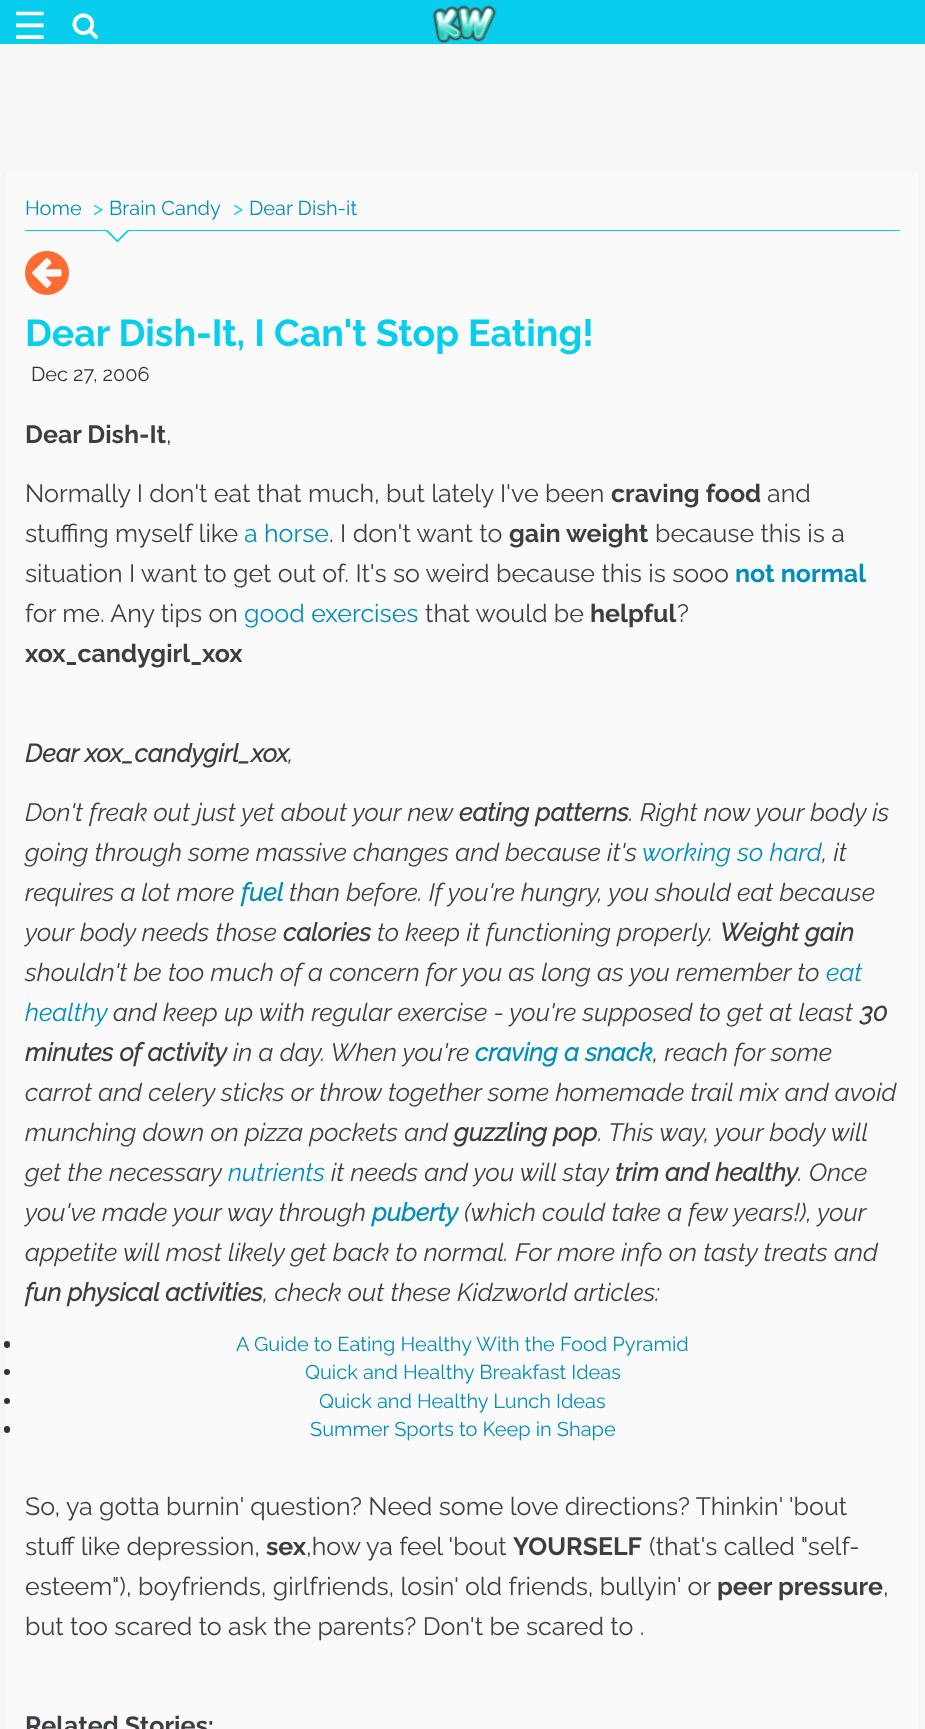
<?xml version="1.0" encoding="UTF-8"?>
<svg xmlns="http://www.w3.org/2000/svg" xmlns:xlink="http://www.w3.org/1999/xlink" width="925" height="1729">
  <rect width="100%" height="100%" fill="#f5f6f6" />
  <rect width="925" height="44" fill="#07ceec" />
  <image x="72" y="13" width="26" height="26" xlink:href="image1.png" />
  <image x="432" y="5" width="65" height="39" xlink:href="image2.png" />
  <rect x="6" y="170" width="913" height="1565" rx="6" fill="#fafafa" />
  <rect x="25" y="230" width="875" height="1" fill="#07ceec" />
  <path d="M 105 230 h 25 l -12.5 12.5 z" fill="#07ceec" />
  <path d="M 107.5 230 h 20 l -10 10 z" fill="#fafafa" />
  <image x="25" y="251" width="44" height="44" xlink:href="image3.png" />
  <rect x="4" y="1341" width="6" height="7" rx="3" fill="#333333" />
  <circle cx="7" cy="1372" r="3" fill="#333333" />
  <circle cx="7" cy="1401" r="3" fill="#333333" />
  <rect x="4" y="1426" width="6" height="7" rx="3" fill="#333333" />
  <text x="13" y="39" style="font-family: DejaVu Sans; font-size: 37.5px; fill: #ffffff">☰</text>
  <text x="25" y="215" style="font-family: Raleway; font-size: 20px; fill: #008ebd">Home</text>
  <text x="93" y="215" style="font-family: Raleway; font-size: 20px; fill: #07ceec">&gt;</text>
  <text x="109" y="215" style="font-family: Raleway; font-size: 20px; fill: #008ebd">Brain Candy</text>
  <text x="233" y="215" style="font-family: Raleway; font-size: 20px; fill: #07ceec">&gt;</text>
  <text x="249" y="215" style="font-family: Raleway; font-size: 20px; fill: #008ebd">Dear Dish-it</text>
  <text x="25" y="346" style="font-family: Raleway; font-size: 37.5px; font-weight: bold; fill: #07ceec">Dear Dish-It, I Can't Stop Eating!</text>
  <text x="31" y="381" style="font-family: Raleway; font-size: 20px; fill: #333333">Dec 27, 2006</text>
  <text x="25" y="443" style="font-family: Raleway; font-size: 25px; font-weight: bold; fill: #3b3e42">Dear Dish-It</text>
  <text x="166" y="443" style="font-family: Raleway; font-size: 25px; fill: #3b3e42">,</text>
  <text x="25" y="502" style="font-family: Raleway; font-size: 25px; fill: #3b3e42">Normally I don't eat that much, but lately I've been</text>
  <text x="611" y="502" style="font-family: Raleway; font-size: 25px; font-weight: bold; fill: #3b3e42">craving food</text>
  <text x="767" y="502" style="font-family: Raleway; font-size: 25px; fill: #3b3e42">and</text>
  <text x="25" y="542" style="font-family: Raleway; font-size: 25px; fill: #3b3e42">stuffing myself like</text>
  <text x="244" y="542" style="font-family: Raleway; font-size: 25px; fill: #008ebd">a horse</text>
  <text x="329" y="542" style="font-family: Raleway; font-size: 25px; fill: #3b3e42">. I don't want to</text>
  <text x="509" y="542" style="font-family: Raleway; font-size: 25px; font-weight: bold; fill: #3b3e42">gain weight</text>
  <text x="655" y="542" style="font-family: Raleway; font-size: 25px; fill: #3b3e42">because this is a</text>
  <text x="25" y="582" style="font-family: Raleway; font-size: 25px; fill: #3b3e42">situation I want to get out of. It's so weird because this is sooo</text>
  <text x="735" y="582" style="font-family: Raleway; font-size: 25px; font-weight: bold; fill: #008ebd">not normal</text>
  <text x="25" y="622" style="font-family: Raleway; font-size: 25px; fill: #3b3e42">for me. Any tips on</text>
  <text x="244" y="622" style="font-family: Raleway; font-size: 25px; fill: #008ebd">good exercises</text>
  <text x="425" y="622" style="font-family: Raleway; font-size: 25px; fill: #3b3e42">that would be</text>
  <text x="590" y="622" style="font-family: Raleway; font-size: 25px; font-weight: bold; fill: #3b3e42">helpful</text>
  <text x="677" y="622" style="font-family: Raleway; font-size: 25px; fill: #3b3e42">?</text>
  <text x="25" y="662" style="font-family: Raleway; font-size: 25px; font-weight: bold; fill: #3b3e42">xox_candygirl_xox</text>
  <text x="25" y="762" style="font-family: Raleway; font-size: 25px; font-weight: bold; font-style: italic; fill: #3b3e42">Dear xox_candygirl_xox</text>
  <text x="288" y="762" style="font-family: Raleway; font-size: 25px; font-weight: 100; font-style: italic; fill: #3b3e42">,</text>
  <text x="25" y="821" style="font-family: Raleway; font-size: 25px; font-weight: 100; font-style: italic; fill: #3b3e42">Don't freak out just yet about your new</text>
  <text x="459" y="821" style="font-family: Raleway; font-size: 25px; font-weight: bold; font-style: italic; fill: #3b3e42">eating patterns</text>
  <text x="629" y="821" style="font-family: Raleway; font-size: 25px; font-weight: 100; font-style: italic; fill: #3b3e42">. Right now your body is</text>
  <text x="25" y="861" style="font-family: Raleway; font-size: 25px; font-weight: 100; font-style: italic; fill: #3b3e42">going through some massive changes and because it's</text>
  <text x="642" y="861" style="font-family: Raleway; font-size: 25px; font-weight: 100; font-style: italic; fill: #008ebd">working so hard</text>
  <text x="822" y="861" style="font-family: Raleway; font-size: 25px; font-weight: 100; font-style: italic; fill: #3b3e42">, it</text>
  <text x="25" y="901" style="font-family: Raleway; font-size: 25px; font-weight: 100; font-style: italic; fill: #3b3e42">requires a lot more</text>
  <text x="241" y="901" style="font-family: Raleway; font-size: 25px; font-weight: bold; font-style: italic; fill: #008ebd">fuel</text>
  <text x="289" y="901" style="font-family: Raleway; font-size: 25px; font-weight: 100; font-style: italic; fill: #3b3e42">than before. If you're hungry, you should eat because</text>
  <text x="25" y="941" style="font-family: Raleway; font-size: 25px; font-weight: 100; font-style: italic; fill: #3b3e42">your body needs those</text>
  <text x="283" y="941" style="font-family: Raleway; font-size: 25px; font-weight: bold; font-style: italic; fill: #3b3e42">calories</text>
  <text x="377" y="941" style="font-family: Raleway; font-size: 25px; font-weight: 100; font-style: italic; fill: #3b3e42">to keep it functioning properly.</text>
  <text x="720" y="941" style="font-family: Raleway; font-size: 25px; font-weight: bold; font-style: italic; fill: #3b3e42">Weight gain</text>
  <text x="25" y="981" style="font-family: Raleway; font-size: 25px; font-weight: 100; font-style: italic; fill: #3b3e42">shouldn't be too much of a concern for you as long as you remember to</text>
  <text x="826" y="981" style="font-family: Raleway; font-size: 25px; font-weight: 100; font-style: italic; fill: #008ebd">eat</text>
  <text x="25" y="1021" style="font-family: Raleway; font-size: 25px; font-weight: 100; font-style: italic; fill: #008ebd">healthy</text>
  <text x="113" y="1021" style="font-family: Raleway; font-size: 25px; font-weight: 100; font-style: italic; fill: #3b3e42">and keep up with regular exercise - you're supposed to get at least</text>
  <text x="860" y="1021" style="font-family: Raleway; font-size: 25px; font-weight: bold; font-style: italic; fill: #3b3e42">30</text>
  <text x="25" y="1061" style="font-family: Raleway; font-size: 25px; font-weight: bold; font-style: italic; fill: #3b3e42">minutes of activity</text>
  <text x="233" y="1061" style="font-family: Raleway; font-size: 25px; font-weight: 100; font-style: italic; fill: #3b3e42">in a day. When you're</text>
  <text x="475" y="1061" style="font-family: Raleway; font-size: 25px; font-weight: bold; font-style: italic; fill: #008ebd">craving a snack</text>
  <text x="653" y="1061" style="font-family: Raleway; font-size: 25px; font-weight: 100; font-style: italic; fill: #3b3e42">, reach for some</text>
  <text x="25" y="1101" style="font-family: Raleway; font-size: 25px; font-weight: 100; font-style: italic; fill: #3b3e42">carrot and celery sticks or throw together some homemade trail mix and avoid</text>
  <text x="25" y="1141" style="font-family: Raleway; font-size: 25px; font-weight: 100; font-style: italic; fill: #3b3e42">munching down on pizza pockets and</text>
  <text x="454" y="1141" style="font-family: Raleway; font-size: 25px; font-weight: bold; font-style: italic; fill: #3b3e42">guzzling pop</text>
  <text x="598" y="1141" style="font-family: Raleway; font-size: 25px; font-weight: 100; font-style: italic; fill: #3b3e42">. This way, your body will</text>
  <text x="25" y="1181" style="font-family: Raleway; font-size: 25px; font-weight: 100; font-style: italic; fill: #3b3e42">get the necessary</text>
  <text x="228" y="1181" style="font-family: Raleway; font-size: 25px; font-weight: 100; font-style: italic; fill: #008ebd">nutrients</text>
  <text x="331" y="1181" style="font-family: Raleway; font-size: 25px; font-weight: 100; font-style: italic; fill: #3b3e42">it needs and you will stay</text>
  <text x="615" y="1181" style="font-family: Raleway; font-size: 25px; font-weight: bold; font-style: italic; fill: #3b3e42">trim and healthy</text>
  <text x="798" y="1181" style="font-family: Raleway; font-size: 25px; font-weight: 100; font-style: italic; fill: #3b3e42">. Once</text>
  <text x="25" y="1221" style="font-family: Raleway; font-size: 25px; font-weight: 100; font-style: italic; fill: #3b3e42">you've made your way through</text>
  <text x="372" y="1221" style="font-family: Raleway; font-size: 25px; font-weight: bold; font-style: italic; fill: #008ebd">puberty</text>
  <text x="464" y="1221" style="font-family: Raleway; font-size: 25px; font-weight: 100; font-style: italic; fill: #3b3e42">(which could take a few years!), your</text>
  <text x="25" y="1261" style="font-family: Raleway; font-size: 25px; font-weight: 100; font-style: italic; fill: #3b3e42">appetite will most likely get back to normal. For more info on tasty treats and</text>
  <text x="25" y="1301" style="font-family: Raleway; font-size: 25px; font-weight: bold; font-style: italic; fill: #3b3e42">fun physical activities</text>
  <text x="263" y="1301" style="font-family: Raleway; font-size: 25px; font-weight: 100; font-style: italic; fill: #3b3e42">, check out these Kidzworld articles:</text>
  <text x="236" y="1351" style="font-family: Raleway; font-size: 20px; fill: #008ebd">A Guide to Eating Healthy With the Food Pyramid</text>
  <text x="305" y="1379" style="font-family: Raleway; font-size: 20px; fill: #008ebd">Quick and Healthy Breakfast Ideas</text>
  <text x="319" y="1408" style="font-family: Raleway; font-size: 20px; fill: #008ebd">Quick and Healthy Lunch Ideas</text>
  <text x="310" y="1436" style="font-family: Raleway; font-size: 20px; fill: #008ebd">Summer Sports to Keep in Shape</text>
  <text x="25" y="1515" style="font-family: Raleway; font-size: 25px; fill: #3b3e42">So, ya gotta burnin' question? Need some love directions? Thinkin' 'bout</text>
  <text x="25" y="1555" style="font-family: Raleway; font-size: 25px; fill: #3b3e42">stuff like depression,</text>
  <text x="266" y="1555" style="font-family: Raleway; font-size: 25px; font-weight: bold; fill: #3b3e42">sex</text>
  <text x="306" y="1555" style="font-family: Raleway; font-size: 25px; fill: #3b3e42">,how ya feel 'bout</text>
  <text x="513" y="1555" style="font-family: Raleway; font-size: 25px; font-weight: bold; fill: #3b3e42">YOURSELF</text>
  <text x="649" y="1555" style="font-family: Raleway; font-size: 25px; fill: #3b3e42">(that's called "self-</text>
  <text x="25" y="1595" style="font-family: Raleway; font-size: 25px; fill: #3b3e42">esteem"), boyfriends, girlfriends, losin' old friends, bullyin' or</text>
  <text x="717" y="1595" style="font-family: Raleway; font-size: 25px; font-weight: bold; fill: #3b3e42">peer pressure</text>
  <text x="883" y="1595" style="font-family: Raleway; font-size: 25px; fill: #3b3e42">,</text>
  <text x="25" y="1635" style="font-family: Raleway; font-size: 25px; fill: #3b3e42">but too scared to ask the parents? Don't be scared to .</text>
  <text x="25" y="1734" style="font-family: Raleway; font-size: 25px; font-weight: bold; fill: #3b3e42">Related Stories:</text>
</svg>
